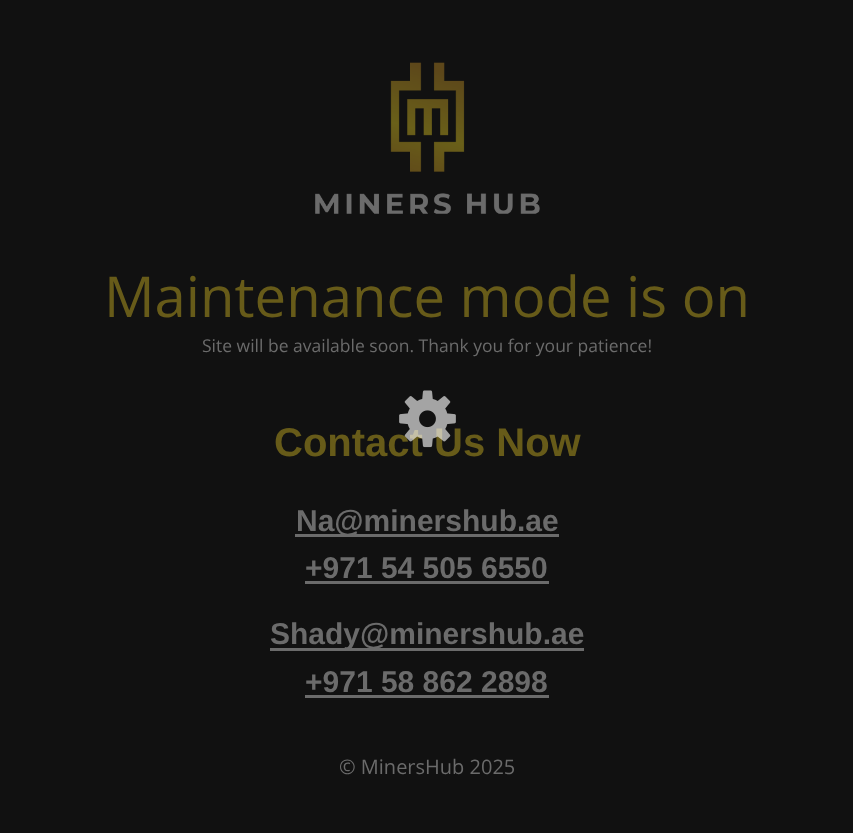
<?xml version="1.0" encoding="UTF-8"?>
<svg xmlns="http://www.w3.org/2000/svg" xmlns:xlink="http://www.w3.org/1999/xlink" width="853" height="833">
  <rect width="100%" height="100%" fill="#111111" />
  <image x="315" y="62" width="225" height="152" xlink:href="image1.png" />
  <rect x="295" y="534" width="264" height="3" fill="#6b6b6b" />
  <rect x="305" y="581" width="244" height="3" fill="#6b6b6b" />
  <rect x="270" y="648" width="314" height="3" fill="#6b6b6b" />
  <rect x="305" y="695" width="244" height="3" fill="#6b6b6b" />
  <text x="104" y="317" style="font-family: Open Sans; font-size: 56.25px; fill: #675b19">Maintenance mode is on</text>
  <text x="202" y="352" style="font-family: Open Sans; font-size: 17.5px; fill: #6b6b6b">Site will be available soon. Thank you for your patience!</text>
  <text x="274" y="456" style="font-family: Liberation Sans; font-size: 40px; font-weight: bold; fill: #675b19">Contact Us Now</text>
  <text x="296" y="531" style="font-family: Liberation Sans; font-size: 30px; font-weight: bold; fill: #6b6b6b">Na@minershub.ae</text>
  <text x="305" y="578" style="font-family: Liberation Sans; font-size: 30px; font-weight: bold; fill: #6b6b6b">+971 54 505 6550</text>
  <text x="270" y="644" style="font-family: Liberation Sans; font-size: 30px; font-weight: bold; fill: #6b6b6b">Shady@minershub.ae</text>
  <text x="305" y="692" style="font-family: Liberation Sans; font-size: 30px; font-weight: bold; fill: #6b6b6b">+971 58 862 2898</text>
  <image x="399" y="390" width="57" height="58" xlink:href="image2.png" />
  <text x="339" y="774" style="font-family: Open Sans; font-size: 20px; fill: #6b6b6b">© MinersHub 2025</text>
</svg>
